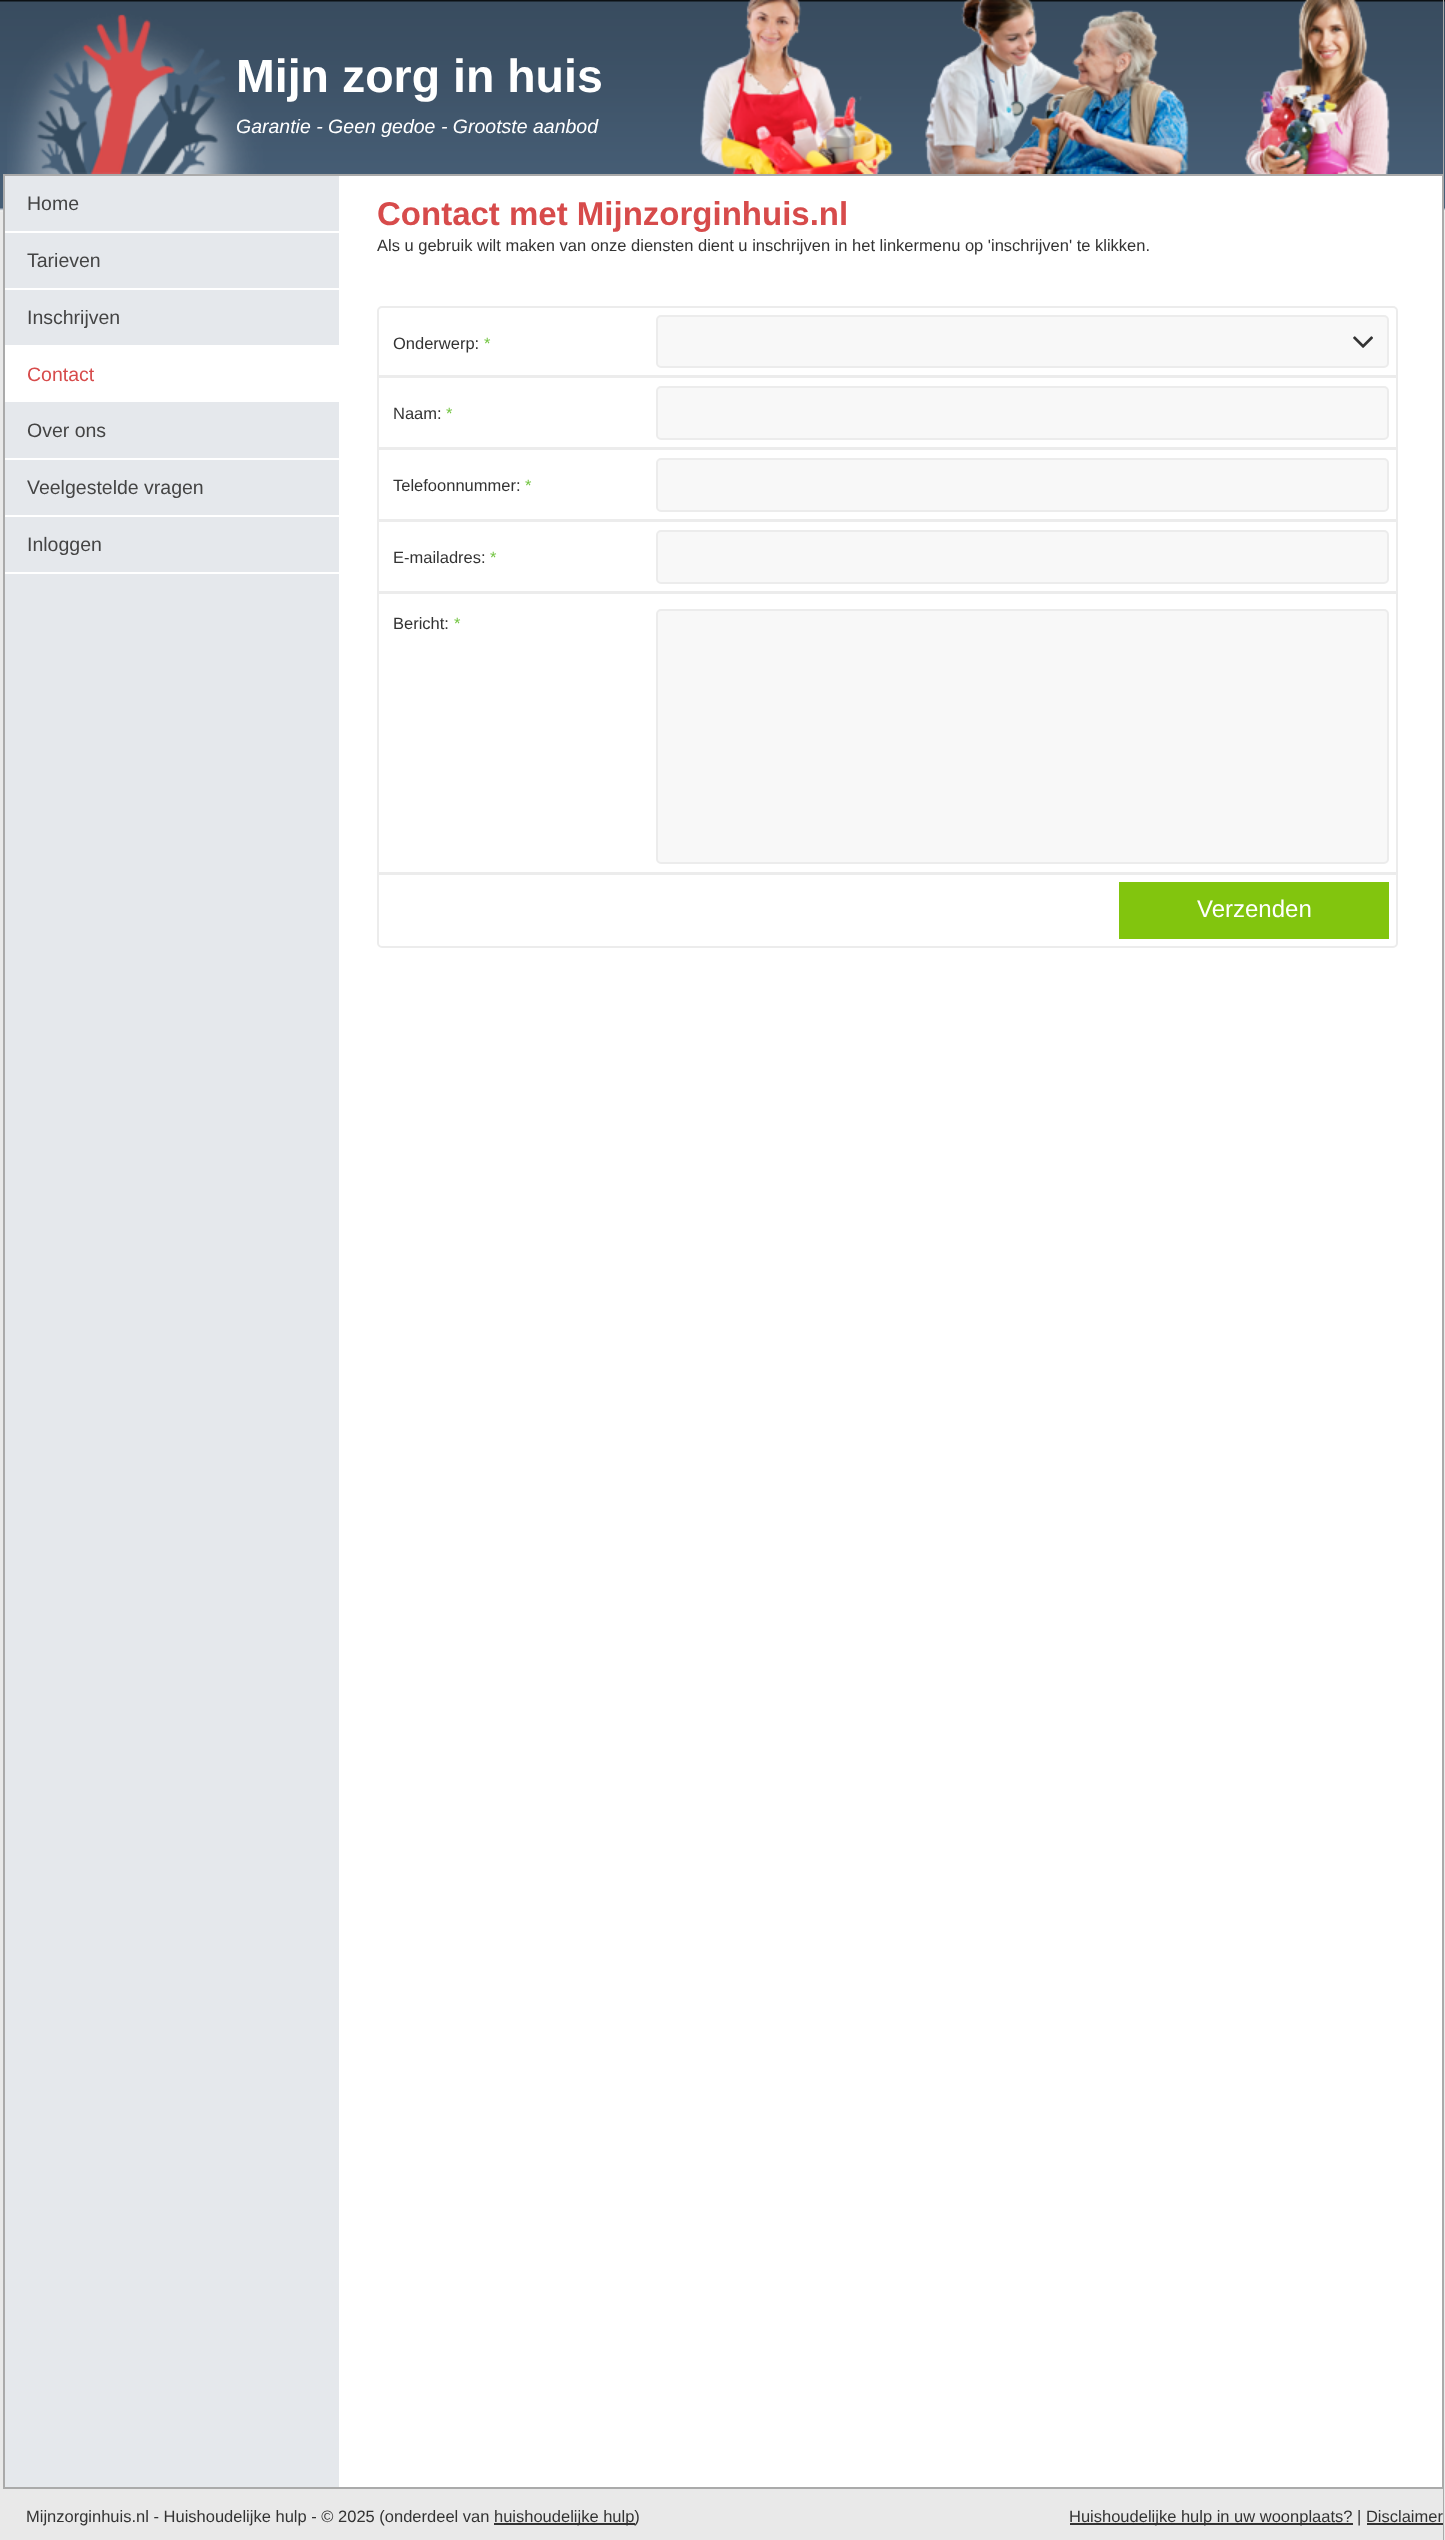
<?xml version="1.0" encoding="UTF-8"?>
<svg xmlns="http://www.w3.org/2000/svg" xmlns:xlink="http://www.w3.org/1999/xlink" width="1445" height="2540">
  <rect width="100%" height="100%" fill="#e9e9e9" />
  <image x="0" y="0" width="1445" height="212" xlink:href="image1.png" />
  <rect x="339" y="176" width="1103" height="2311" fill="#ffffff" />
  <rect x="5" y="176" width="334" height="2311" fill="#e5e8ec" />
  <rect x="1442" width="2" height="2540" fill="#aaaaaa" />
  <rect x="3" y="174" width="2" height="2313" fill="#aaaaaa" />
  <image x="3" y="0" width="1440" height="174" xlink:href="image2.png" />
  <image x="7" y="0" width="1383" height="174" xlink:href="image3.png" />
  <rect x="5" y="174" width="1437" height="2" fill="#aaaaaa" />
  <rect x="5" y="231" width="334" height="2" fill="#ffffff" />
  <rect x="5" y="288" width="334" height="2" fill="#ffffff" />
  <rect x="5" y="345" width="334" height="57" fill="#ffffff" />
  <rect x="5" y="458" width="334" height="2" fill="#ffffff" />
  <rect x="5" y="515" width="334" height="2" fill="#ffffff" />
  <rect x="5" y="572" width="334" height="2" fill="#ffffff" />
  <rect x="378" y="307" width="1019" height="640" rx="4" fill="none" stroke="#ececec" stroke-width="2" />
  <rect x="378" y="375" width="1019" height="3" fill="#ececec" />
  <rect x="657" y="316" width="731" height="51" rx="4" fill="#f8f8f8" stroke="#ececec" stroke-width="2" />
  <image x="1353" y="336" width="20" height="12" xlink:href="image4.png" />
  <rect x="378" y="447" width="1019" height="3" fill="#ececec" />
  <rect x="657" y="387" width="731" height="52" rx="4" fill="#f8f8f8" stroke="#ececec" stroke-width="2" />
  <rect x="378" y="519" width="1019" height="3" fill="#ececec" />
  <rect x="657" y="459" width="731" height="52" rx="4" fill="#f8f8f8" stroke="#ececec" stroke-width="2" />
  <rect x="378" y="591" width="1019" height="3" fill="#ececec" />
  <rect x="657" y="531" width="731" height="52" rx="4" fill="#f8f8f8" stroke="#ececec" stroke-width="2" />
  <rect x="378" y="872" width="1019" height="3" fill="#ececec" />
  <rect x="657" y="610" width="731" height="253" rx="4" fill="#f8f8f8" stroke="#ececec" stroke-width="2" />
  <rect x="1119" y="882" width="270" height="57" fill="#82c50e" />
  <rect x="1442" y="2489" width="1" height="51" fill="#e9e9e9" />
  <rect x="3" y="2487" width="1440" height="2" fill="#aaaaaa" />
  <rect x="494" y="2523" width="141" height="2" fill="#333333" />
  <rect x="1070" y="2523" width="283" height="2" fill="#333333" />
  <rect x="1367" y="2523" width="76" height="2" fill="#333333" />
  <text x="236" y="92" style="font-family: Liberation Sans; font-size: 46.5px; font-weight: bold; fill: #ffffff">Mijn zorg in huis</text>
  <text x="236" y="133" style="font-family: Liberation Sans; font-size: 19.5px; font-style: italic; fill: #ffffff">Garantie - Geen gedoe - Grootste aanbod</text>
  <text x="27" y="210" style="font-family: Liberation Sans; font-size: 19.5px; fill: #444444">Home</text>
  <text x="27" y="267" style="font-family: Liberation Sans; font-size: 19.5px; fill: #444444">Tarieven</text>
  <text x="27" y="324" style="font-family: Liberation Sans; font-size: 19.5px; fill: #444444">Inschrijven</text>
  <text x="27" y="381" style="font-family: Liberation Sans; font-size: 19.5px; fill: #d74b4b">Contact</text>
  <text x="27" y="437" style="font-family: Liberation Sans; font-size: 19.5px; fill: #444444">Over ons</text>
  <text x="27" y="494" style="font-family: Liberation Sans; font-size: 19.5px; fill: #444444">Veelgestelde vragen</text>
  <text x="27" y="551" style="font-family: Liberation Sans; font-size: 19.5px; fill: #444444">Inloggen</text>
  <text x="377" y="225" style="font-family: Liberation Sans; font-size: 33px; font-weight: bold; fill: #d74b4b">Contact met Mijnzorginhuis.nl</text>
  <text x="377" y="251" style="font-family: Liberation Sans; font-size: 16.5px; fill: #333333">Als u gebruik wilt maken van onze diensten dient u inschrijven in het linkermenu op 'inschrijven' te klikken.</text>
  <text x="393" y="349" style="font-family: Liberation Sans; font-size: 16.5px; fill: #333333">Onderwerp:</text>
  <text x="484" y="349" style="font-family: Liberation Sans; font-size: 16.5px; fill: #74c543">*</text>
  <text x="393" y="419" style="font-family: Liberation Sans; font-size: 16.5px; fill: #333333">Naam:</text>
  <text x="446" y="419" style="font-family: Liberation Sans; font-size: 16.5px; fill: #74c543">*</text>
  <text x="393" y="491" style="font-family: Liberation Sans; font-size: 16.5px; fill: #333333">Telefoonnummer:</text>
  <text x="525" y="491" style="font-family: Liberation Sans; font-size: 16.5px; fill: #74c543">*</text>
  <text x="393" y="563" style="font-family: Liberation Sans; font-size: 16.5px; fill: #333333">E-mailadres:</text>
  <text x="490" y="563" style="font-family: Liberation Sans; font-size: 16.5px; fill: #74c543">*</text>
  <text x="393" y="629" style="font-family: Liberation Sans; font-size: 16.5px; fill: #333333">Bericht:</text>
  <text x="454" y="629" style="font-family: Liberation Sans; font-size: 16.5px; fill: #74c543">*</text>
  <text x="1197" y="917" style="font-family: Liberation Sans; font-size: 24px; fill: #ffffff">Verzenden</text>
  <text x="26" y="2522" style="font-family: Liberation Sans; font-size: 16.5px; fill: #333333">Mijnzorginhuis.nl - Huishoudelijke hulp - © 2025 (onderdeel van</text>
  <text x="494" y="2522" style="font-family: Liberation Sans; font-size: 16.5px; fill: #333333">huishoudelijke hulp)</text>
  <text x="1069" y="2522" style="font-family: Liberation Sans; font-size: 16.5px; fill: #333333">Huishoudelijke hulp in uw woonplaats? | Disclaimer</text>
</svg>
